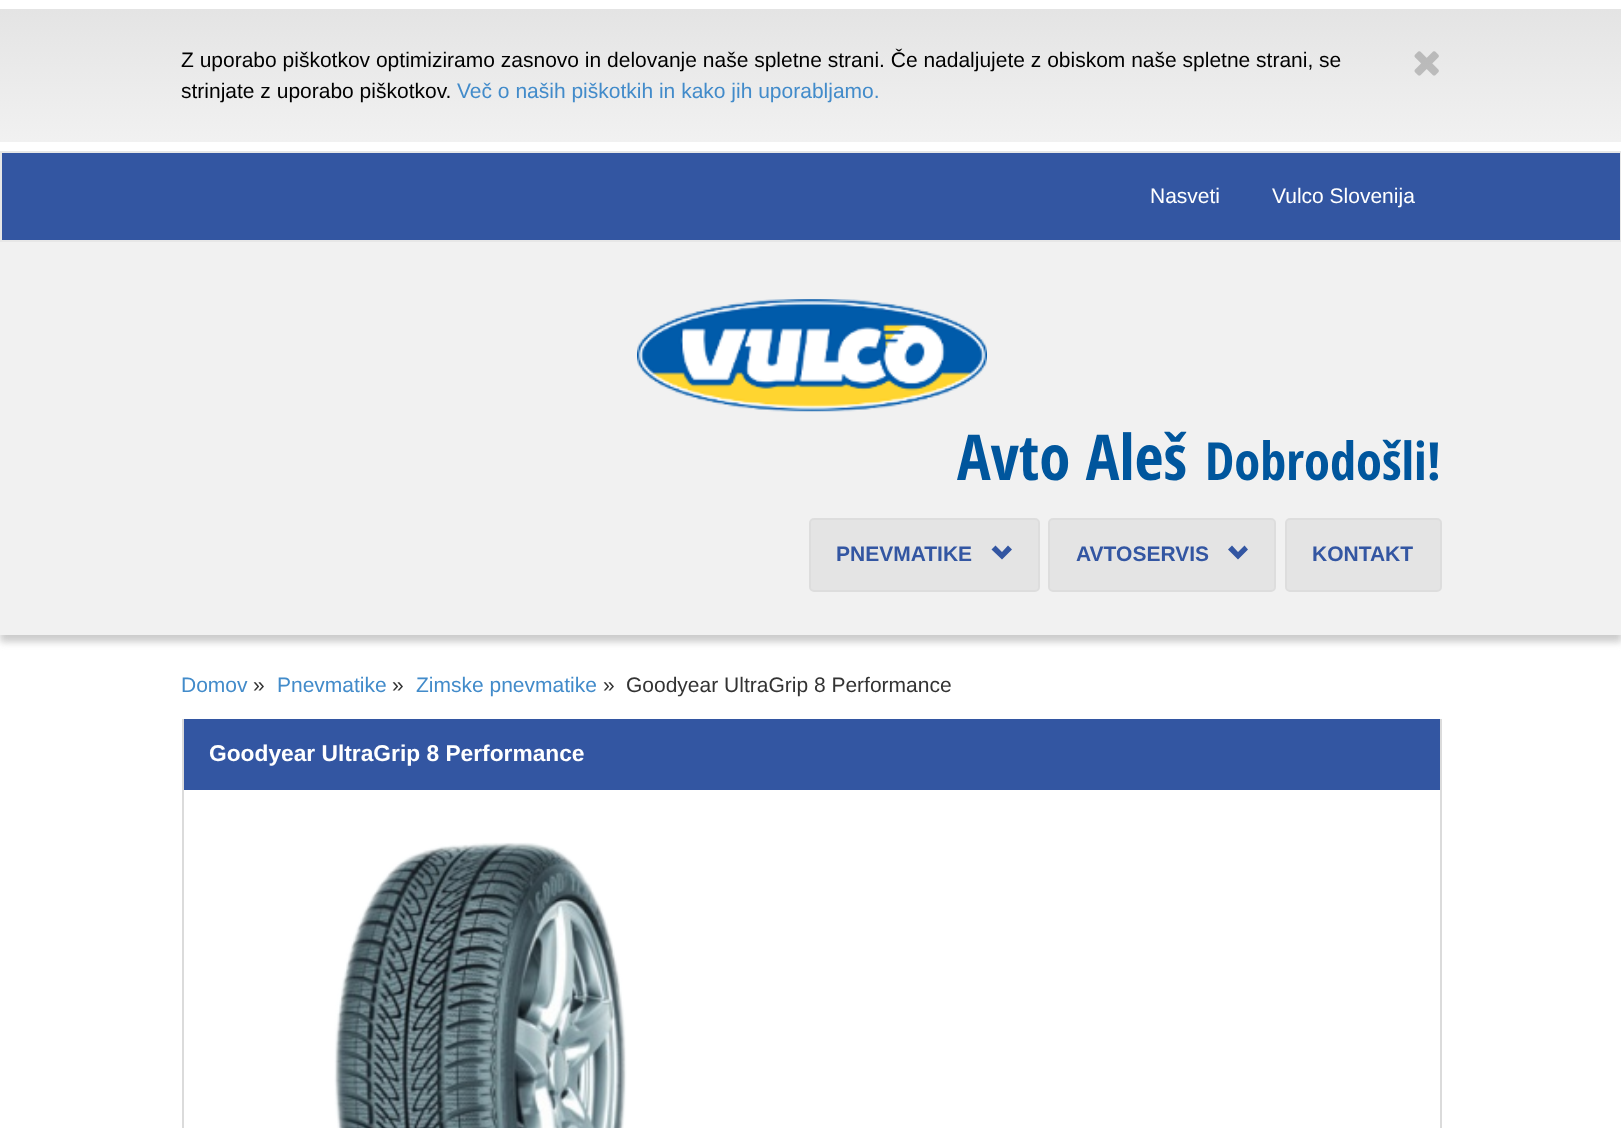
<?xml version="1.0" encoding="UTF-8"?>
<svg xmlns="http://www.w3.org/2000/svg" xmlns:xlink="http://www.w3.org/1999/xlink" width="1621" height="1128">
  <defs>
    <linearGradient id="g1" gradientUnits="userSpaceOnUse" x1="811" y1="9" x2="811" y2="142"><stop offset="0" stop-color="#e4e4e4" /><stop offset="1" stop-color="#f1f1f1" /></linearGradient>
  </defs>
  <rect width="100%" height="100%" fill="#ffffff" />
  <rect y="9" width="1621" height="133" fill="url(#g1)" />
  <image x="1414" y="51" width="25" height="25" xlink:href="image1.png" />
  <rect y="249" width="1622" height="393" fill="#cccccc" filter="blur(3.5px)" />
  <rect x="1" y="152" width="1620" height="89" fill="#3356a2" stroke="#e7e7e7" stroke-width="2" />
  <rect y="242" width="1621" height="393" fill="#f1f1f1" />
  <image x="637" y="299" width="350" height="113" xlink:href="image2.png" />
  <rect x="810" y="519" width="229" height="72" rx="4" fill="#e4e4e4" stroke="#dddddd" stroke-width="2" />
  <path d="M 991.5 549.5 l 10.5 10 l 10 -10 l -4 -4 l -6 6.5 l -6.5 -6.5 z" fill="#3356a2" />
  <rect x="1049" y="519" width="226" height="72" rx="4" fill="#e4e4e4" stroke="#dddddd" stroke-width="2" />
  <path d="M 1228 549.5 l 10 10 l 10 -10 l -3.5 -4 l -6.5 6.5 l -6 -6.5 z" fill="#3356a2" />
  <rect x="1286" y="519" width="155" height="72" rx="4" fill="#e4e4e4" stroke="#dddddd" stroke-width="2" />
  <rect x="1440" y="719" width="2" height="409" fill="#dbdbdb" />
  <rect x="182" y="719" width="2" height="409" fill="#dbdbdb" />
  <rect x="184" y="719" width="1256" height="71" fill="#3356a2" />
  <image x="334" y="842" width="293" height="286" xlink:href="image3.png" />
  <text x="181" y="67" style="font-family: Liberation Sans; font-size: 21px; fill: #000000">Z uporabo piškotkov optimiziramo zasnovo in delovanje naše spletne strani. Če nadaljujete z obiskom naše spletne strani, se</text>
  <text x="181" y="98" style="font-family: Liberation Sans; font-size: 21px; fill: #000000">strinjate z uporabo piškotkov.</text>
  <text x="457" y="98" style="font-family: Liberation Sans; font-size: 21px; fill: #428bca">Več o naših piškotkih in kako jih uporabljamo.</text>
  <text x="1150" y="203" style="font-family: Liberation Sans; font-size: 21px; fill: #ffffff">Nasveti</text>
  <text x="1272" y="203" style="font-family: Liberation Sans; font-size: 21px; fill: #ffffff">Vulco Slovenija</text>
  <text x="957" y="480" style="font-family: Open Sans Condensed; font-size: 63px; font-weight: bold; fill: #00569d">Avto Aleš</text>
  <text x="1205" y="480" style="font-family: Open Sans Condensed; font-size: 52.5px; font-weight: bold; fill: #00569d">Dobrodošli!</text>
  <text x="836" y="561" style="font-family: Liberation Sans; font-size: 21px; font-weight: bold; fill: #3356a2">PNEVMATIKE</text>
  <text x="1076" y="561" style="font-family: Liberation Sans; font-size: 21px; font-weight: bold; fill: #3356a2">AVTOSERVIS</text>
  <text x="1312" y="561" style="font-family: Liberation Sans; font-size: 21px; font-weight: bold; fill: #3356a2">KONTAKT</text>
  <text x="181" y="692" style="font-family: Liberation Sans; font-size: 21px; fill: #428bca">Domov</text>
  <text x="253" y="692" style="font-family: Liberation Sans; font-size: 21px; fill: #333333">»</text>
  <text x="277" y="692" style="font-family: Liberation Sans; font-size: 21px; fill: #428bca">Pnevmatike</text>
  <text x="392" y="692" style="font-family: Liberation Sans; font-size: 21px; fill: #333333">»</text>
  <text x="416" y="692" style="font-family: Liberation Sans; font-size: 21px; fill: #428bca">Zimske pnevmatike</text>
  <text x="603" y="692" style="font-family: Liberation Sans; font-size: 21px; fill: #333333">»</text>
  <text x="626" y="692" style="font-family: Liberation Sans; font-size: 21px; fill: #333333">Goodyear UltraGrip 8 Performance</text>
  <text x="209" y="761" style="font-family: Liberation Sans; font-size: 22.75px; font-weight: bold; fill: #ffffff">Goodyear UltraGrip 8 Performance</text>
</svg>
